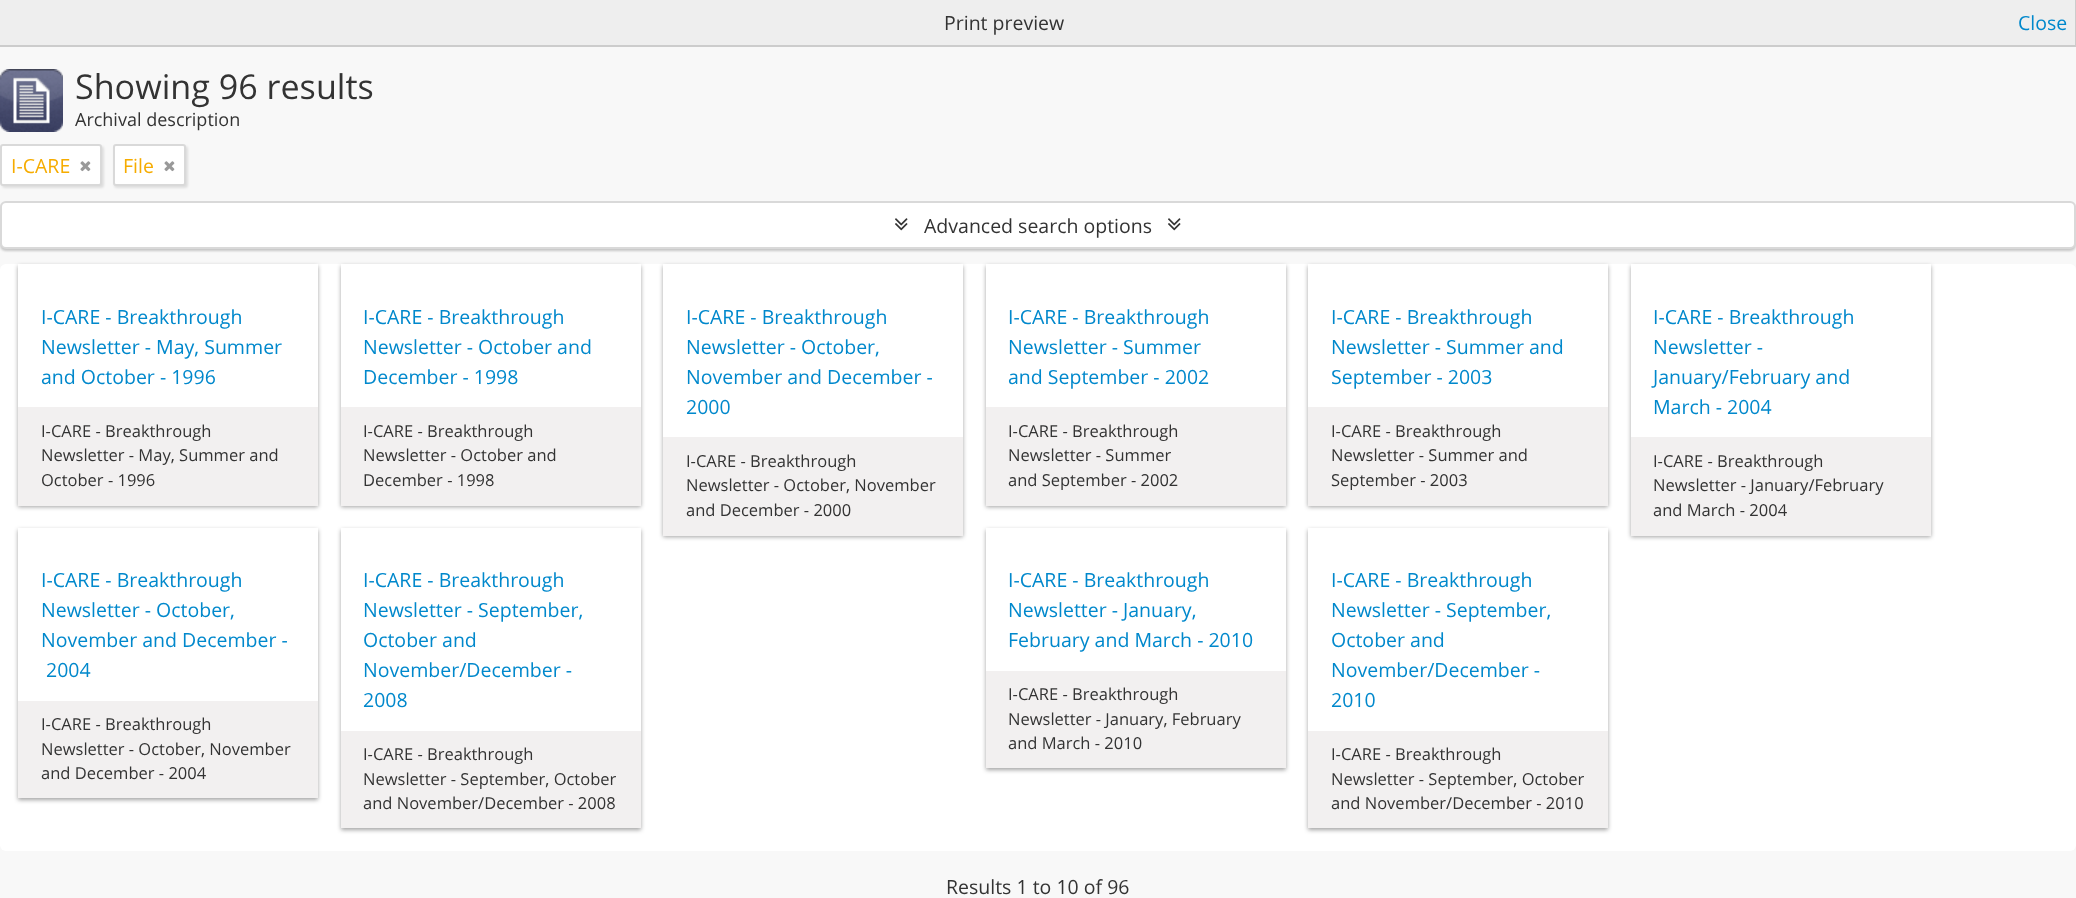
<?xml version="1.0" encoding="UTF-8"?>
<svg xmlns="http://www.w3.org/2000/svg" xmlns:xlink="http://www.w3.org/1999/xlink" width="2076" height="898">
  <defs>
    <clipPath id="clip1"><path d="M 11 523 h 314 v 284 h -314 z m 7 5 h 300 v 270 h -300 z" clip-rule="evenodd" /></clipPath>
    <clipPath id="clip2"><path d="M 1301 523 h 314 v 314 h -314 z m 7 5 h 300 v 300 h -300 z" clip-rule="evenodd" /></clipPath>
  </defs>
  <rect width="100%" height="100%" fill="#f8f8f8" />
  <rect width="2075" height="45" fill="#eeeeee" />
  <rect x="2075" width="1" height="47" fill="#cccccc" />
  <rect y="45" width="2076" height="2" fill="#cccccc" />
  <image x="0" y="69" width="63" height="63" xlink:href="image1.png" />
  <rect x="2" y="146" width="102" height="42" rx="3" fill="#000000" fill-opacity="0.1" filter="blur(1px)" />
  <rect x="1" y="145" width="100" height="40" rx="2" fill="#ffffff" stroke="#d9d9d9" stroke-width="2" />
  <image x="80" y="161" width="11" height="11" xlink:href="image2.png" />
  <rect x="114" y="146" width="74" height="42" rx="3" fill="#000000" fill-opacity="0.1" filter="blur(1px)" />
  <rect x="114" y="145" width="71" height="40" rx="2" fill="#ffffff" stroke="#d9d9d9" stroke-width="2" />
  <image x="164" y="161" width="11" height="11" xlink:href="image2.png" />
  <rect y="203" width="2076" height="48" rx="6" fill="#000000" fill-opacity="0.2" filter="blur(1px)" />
  <rect x="1" y="202" width="2074" height="46" rx="5" fill="#ffffff" stroke="#d9d9d9" stroke-width="2" />
  <image x="895" y="218" width="13" height="13" xlink:href="image3.png" />
  <image x="1168" y="218" width="13" height="13" xlink:href="image3.png" />
  <rect y="264" width="2076" height="587" rx="6" fill="#ffffff" />
  <rect x="18" y="266" width="300" height="241" fill="#191919" fill-opacity="0.4" filter="blur(2px)" />
  <rect x="18" y="264" width="300" height="143" fill="#ffffff" />
  <rect x="18" y="407" width="300" height="99" fill="#f2f0f0" />
  <rect x="341" y="266" width="300" height="241" fill="#191919" fill-opacity="0.4" filter="blur(2px)" />
  <rect x="341" y="264" width="300" height="143" fill="#ffffff" />
  <rect x="341" y="407" width="300" height="99" fill="#f2f0f0" />
  <rect x="663" y="266" width="300" height="271" fill="#191919" fill-opacity="0.4" filter="blur(2px)" />
  <rect x="663" y="264" width="300" height="173" fill="#ffffff" />
  <rect x="663" y="437" width="300" height="99" fill="#f2f0f0" />
  <rect x="986" y="266" width="300" height="241" fill="#191919" fill-opacity="0.4" filter="blur(2px)" />
  <rect x="986" y="264" width="300" height="143" fill="#ffffff" />
  <rect x="986" y="407" width="300" height="99" fill="#f2f0f0" />
  <rect x="1308" y="266" width="300" height="241" fill="#191919" fill-opacity="0.4" filter="blur(2px)" />
  <rect x="1308" y="264" width="300" height="143" fill="#ffffff" />
  <rect x="1308" y="407" width="300" height="99" fill="#f2f0f0" />
  <rect x="1631" y="266" width="300" height="271" fill="#191919" fill-opacity="0.4" filter="blur(2px)" />
  <rect x="1631" y="264" width="300" height="173" fill="#ffffff" />
  <rect x="1631" y="437" width="300" height="99" fill="#f2f0f0" />
  <g clip-path="url(#clip1)">
    <rect x="18" y="530" width="300" height="270" fill="#191919" fill-opacity="0.4" filter="blur(2px)" />
  </g>
  <rect x="18" y="701" width="300" height="97" fill="#f2f0f0" />
  <rect x="341" y="530" width="300" height="300" fill="#191919" fill-opacity="0.4" filter="blur(2px)" />
  <rect x="341" y="528" width="300" height="203" fill="#ffffff" />
  <rect x="341" y="731" width="300" height="97" fill="#f2f0f0" />
  <rect x="986" y="530" width="300" height="240" fill="#191919" fill-opacity="0.4" filter="blur(2px)" />
  <rect x="986" y="528" width="300" height="143" fill="#ffffff" />
  <rect x="986" y="671" width="300" height="97" fill="#f2f0f0" />
  <g clip-path="url(#clip2)">
    <rect x="1308" y="530" width="300" height="300" fill="#191919" fill-opacity="0.4" filter="blur(2px)" />
  </g>
  <rect x="1308" y="731" width="300" height="97" fill="#f2f0f0" />
  <text x="944" y="30" style="font-family: Open Sans; font-size: 19.5px; fill: #333333">Print preview</text>
  <text x="2018" y="30" style="font-family: Open Sans; font-size: 19.5px; fill: #0088cc">Close</text>
  <text x="75" y="99" style="font-family: Open Sans; font-size: 34.1px; fill: #333333">Showing 96 results</text>
  <text x="75" y="126" style="font-family: Open Sans; font-size: 18px; fill: #333333">Archival description</text>
  <text x="11" y="173" style="font-family: Open Sans; font-size: 19.5px; fill: #f6ac00">I-CARE</text>
  <text x="123" y="173" style="font-family: Open Sans; font-size: 19.5px; fill: #f6ac00">File</text>
  <text x="924" y="233" style="font-family: Open Sans; font-size: 19.5px; fill: #333333">Advanced search options</text>
  <text x="41" y="324" style="font-family: Open Sans; font-size: 19.5px; fill: #0088cc">I-CARE - Breakthrough</text>
  <text x="41" y="354" style="font-family: Open Sans; font-size: 19.5px; fill: #0088cc">Newsletter - May, Summer</text>
  <text x="41" y="384" style="font-family: Open Sans; font-size: 19.5px; fill: #0088cc">and October - 1996</text>
  <text x="41" y="437" style="font-family: Open Sans; font-size: 16.5px; fill: #333333">I-CARE - Breakthrough</text>
  <text x="41" y="461" style="font-family: Open Sans; font-size: 16.5px; fill: #333333">Newsletter - May, Summer and</text>
  <text x="41" y="486" style="font-family: Open Sans; font-size: 16.5px; fill: #333333">October - 1996</text>
  <text x="363" y="324" style="font-family: Open Sans; font-size: 19.5px; fill: #0088cc">I-CARE - Breakthrough</text>
  <text x="363" y="354" style="font-family: Open Sans; font-size: 19.5px; fill: #0088cc">Newsletter - October and</text>
  <text x="363" y="384" style="font-family: Open Sans; font-size: 19.5px; fill: #0088cc">December - 1998</text>
  <text x="363" y="437" style="font-family: Open Sans; font-size: 16.5px; fill: #333333">I-CARE - Breakthrough</text>
  <text x="363" y="461" style="font-family: Open Sans; font-size: 16.5px; fill: #333333">Newsletter - October and</text>
  <text x="363" y="486" style="font-family: Open Sans; font-size: 16.5px; fill: #333333">December - 1998</text>
  <text x="686" y="324" style="font-family: Open Sans; font-size: 19.5px; fill: #0088cc">I-CARE - Breakthrough</text>
  <text x="686" y="354" style="font-family: Open Sans; font-size: 19.5px; fill: #0088cc">Newsletter - October,</text>
  <text x="686" y="384" style="font-family: Open Sans; font-size: 19.5px; fill: #0088cc">November and December -</text>
  <text x="686" y="414" style="font-family: Open Sans; font-size: 19.5px; fill: #0088cc">2000</text>
  <text x="686" y="467" style="font-family: Open Sans; font-size: 16.5px; fill: #333333">I-CARE - Breakthrough</text>
  <text x="686" y="491" style="font-family: Open Sans; font-size: 16.5px; fill: #333333">Newsletter - October, November</text>
  <text x="686" y="516" style="font-family: Open Sans; font-size: 16.5px; fill: #333333">and December - 2000</text>
  <text x="1008" y="324" style="font-family: Open Sans; font-size: 19.5px; fill: #0088cc">I-CARE - Breakthrough</text>
  <text x="1008" y="354" style="font-family: Open Sans; font-size: 19.5px; fill: #0088cc">Newsletter - Summer</text>
  <text x="1008" y="384" style="font-family: Open Sans; font-size: 19.5px; fill: #0088cc">and September - 2002</text>
  <text x="1008" y="437" style="font-family: Open Sans; font-size: 16.5px; fill: #333333">I-CARE - Breakthrough</text>
  <text x="1008" y="461" style="font-family: Open Sans; font-size: 16.5px; fill: #333333">Newsletter - Summer</text>
  <text x="1008" y="486" style="font-family: Open Sans; font-size: 16.5px; fill: #333333">and September - 2002</text>
  <text x="1331" y="324" style="font-family: Open Sans; font-size: 19.5px; fill: #0088cc">I-CARE - Breakthrough</text>
  <text x="1331" y="354" style="font-family: Open Sans; font-size: 19.5px; fill: #0088cc">Newsletter - Summer and</text>
  <text x="1331" y="384" style="font-family: Open Sans; font-size: 19.5px; fill: #0088cc">September - 2003</text>
  <text x="1331" y="437" style="font-family: Open Sans; font-size: 16.5px; fill: #333333">I-CARE - Breakthrough</text>
  <text x="1331" y="461" style="font-family: Open Sans; font-size: 16.5px; fill: #333333">Newsletter - Summer and</text>
  <text x="1331" y="486" style="font-family: Open Sans; font-size: 16.5px; fill: #333333">September - 2003</text>
  <text x="1653" y="324" style="font-family: Open Sans; font-size: 19.5px; fill: #0088cc">I-CARE - Breakthrough</text>
  <text x="1653" y="354" style="font-family: Open Sans; font-size: 19.5px; fill: #0088cc">Newsletter -</text>
  <text x="1653" y="384" style="font-family: Open Sans; font-size: 19.5px; fill: #0088cc">January/February and</text>
  <text x="1653" y="414" style="font-family: Open Sans; font-size: 19.5px; fill: #0088cc">March - 2004</text>
  <text x="1653" y="467" style="font-family: Open Sans; font-size: 16.5px; fill: #333333">I-CARE - Breakthrough</text>
  <text x="1653" y="491" style="font-family: Open Sans; font-size: 16.5px; fill: #333333">Newsletter - January/February</text>
  <text x="1653" y="516" style="font-family: Open Sans; font-size: 16.5px; fill: #333333">and March - 2004</text>
  <text x="41" y="587" style="font-family: Open Sans; font-size: 19.5px; fill: #0088cc">I-CARE - Breakthrough</text>
  <text x="41" y="617" style="font-family: Open Sans; font-size: 19.5px; fill: #0088cc">Newsletter - October,</text>
  <text x="41" y="647" style="font-family: Open Sans; font-size: 19.5px; fill: #0088cc">November and December -</text>
  <text x="46" y="677" style="font-family: Open Sans; font-size: 19.5px; fill: #0088cc">2004</text>
  <text x="41" y="730" style="font-family: Open Sans; font-size: 16.5px; fill: #333333">I-CARE - Breakthrough</text>
  <text x="41" y="755" style="font-family: Open Sans; font-size: 16.5px; fill: #333333">Newsletter - October, November</text>
  <text x="41" y="779" style="font-family: Open Sans; font-size: 16.5px; fill: #333333">and December - 2004</text>
  <text x="363" y="587" style="font-family: Open Sans; font-size: 19.5px; fill: #0088cc">I-CARE - Breakthrough</text>
  <text x="363" y="617" style="font-family: Open Sans; font-size: 19.5px; fill: #0088cc">Newsletter - September,</text>
  <text x="363" y="647" style="font-family: Open Sans; font-size: 19.5px; fill: #0088cc">October and</text>
  <text x="363" y="677" style="font-family: Open Sans; font-size: 19.5px; fill: #0088cc">November/December -</text>
  <text x="363" y="707" style="font-family: Open Sans; font-size: 19.5px; fill: #0088cc">2008</text>
  <text x="363" y="760" style="font-family: Open Sans; font-size: 16.5px; fill: #333333">I-CARE - Breakthrough</text>
  <text x="363" y="785" style="font-family: Open Sans; font-size: 16.5px; fill: #333333">Newsletter - September, October</text>
  <text x="363" y="809" style="font-family: Open Sans; font-size: 16.5px; fill: #333333">and November/December - 2008</text>
  <text x="1008" y="587" style="font-family: Open Sans; font-size: 19.5px; fill: #0088cc">I-CARE - Breakthrough</text>
  <text x="1008" y="617" style="font-family: Open Sans; font-size: 19.5px; fill: #0088cc">Newsletter - January,</text>
  <text x="1008" y="647" style="font-family: Open Sans; font-size: 19.5px; fill: #0088cc">February and March - 2010</text>
  <text x="1008" y="700" style="font-family: Open Sans; font-size: 16.5px; fill: #333333">I-CARE - Breakthrough</text>
  <text x="1008" y="725" style="font-family: Open Sans; font-size: 16.5px; fill: #333333">Newsletter - January, February</text>
  <text x="1008" y="749" style="font-family: Open Sans; font-size: 16.5px; fill: #333333">and March - 2010</text>
  <text x="1331" y="587" style="font-family: Open Sans; font-size: 19.5px; fill: #0088cc">I-CARE - Breakthrough</text>
  <text x="1331" y="617" style="font-family: Open Sans; font-size: 19.5px; fill: #0088cc">Newsletter - September,</text>
  <text x="1331" y="647" style="font-family: Open Sans; font-size: 19.5px; fill: #0088cc">October and</text>
  <text x="1331" y="677" style="font-family: Open Sans; font-size: 19.5px; fill: #0088cc">November/December -</text>
  <text x="1331" y="707" style="font-family: Open Sans; font-size: 19.5px; fill: #0088cc">2010</text>
  <text x="1331" y="760" style="font-family: Open Sans; font-size: 16.5px; fill: #333333">I-CARE - Breakthrough</text>
  <text x="1331" y="785" style="font-family: Open Sans; font-size: 16.5px; fill: #333333">Newsletter - September, October</text>
  <text x="1331" y="809" style="font-family: Open Sans; font-size: 16.5px; fill: #333333">and November/December - 2010</text>
  <text x="946" y="894" style="font-family: Open Sans; font-size: 19.5px; fill: #333333">Results 1 to 10 of 96</text>
</svg>
